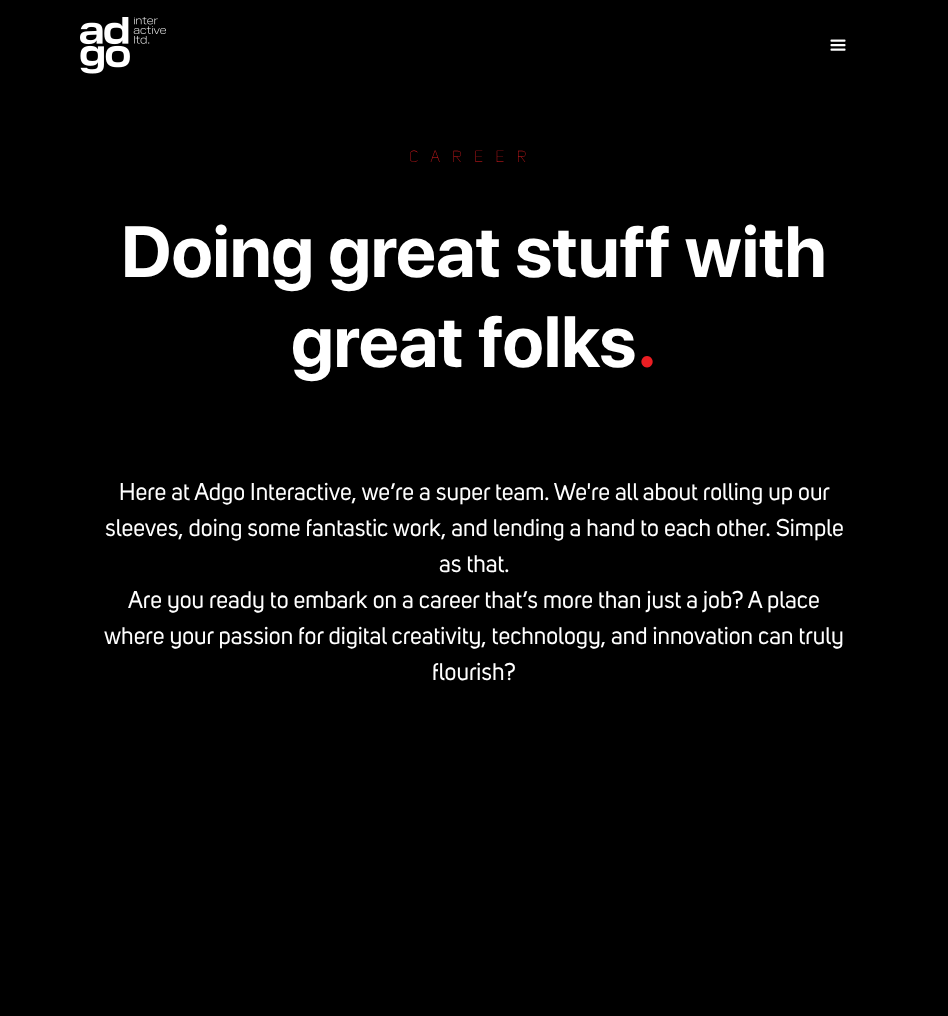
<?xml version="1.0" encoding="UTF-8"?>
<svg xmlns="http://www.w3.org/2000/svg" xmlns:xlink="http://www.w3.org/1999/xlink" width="948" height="1016">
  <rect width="100%" height="100%" fill="#000000" />
  <image x="80" y="17" width="86" height="57" xlink:href="image1.png" />
  <image x="830" y="39" width="16" height="12" xlink:href="image2.png" />
  <text x="409" y="162" style="font-family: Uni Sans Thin; font-size: 16px; font-weight: 100; letter-spacing: 12px; fill: #eb1e23">CAREER</text>
  <text x="121" y="277" style="font-family: SF Pro Display; font-size: 72px; font-weight: bold; fill: #ffffff">Doing great stuff with</text>
  <text x="291" y="367" style="font-family: SF Pro Display; font-size: 72px; font-weight: bold; fill: #ffffff">great folks</text>
  <text x="637" y="367" style="font-family: SF Pro Display; font-size: 72px; font-weight: bold; fill: #eb1e23">.</text>
  <text x="119" y="500" style="font-family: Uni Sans; font-size: 24px; fill: #ffffff">Here at Adgo Interactive, we’re a super team. We're all about rolling up our</text>
  <text x="105" y="536" style="font-family: Uni Sans; font-size: 24px; fill: #ffffff">sleeves, doing some fantastic work, and lending a hand to each other. Simple</text>
  <text x="439" y="572" style="font-family: Uni Sans; font-size: 24px; fill: #ffffff">as that.</text>
  <text x="128" y="608" style="font-family: Uni Sans; font-size: 24px; fill: #ffffff">Are you ready to embark on a career that’s more than just a job? A place</text>
  <text x="104" y="644" style="font-family: Uni Sans; font-size: 24px; fill: #ffffff">where your passion for digital creativity, technology, and innovation can truly</text>
  <text x="432" y="680" style="font-family: Uni Sans; font-size: 24px; fill: #ffffff">flourish?</text>
</svg>
